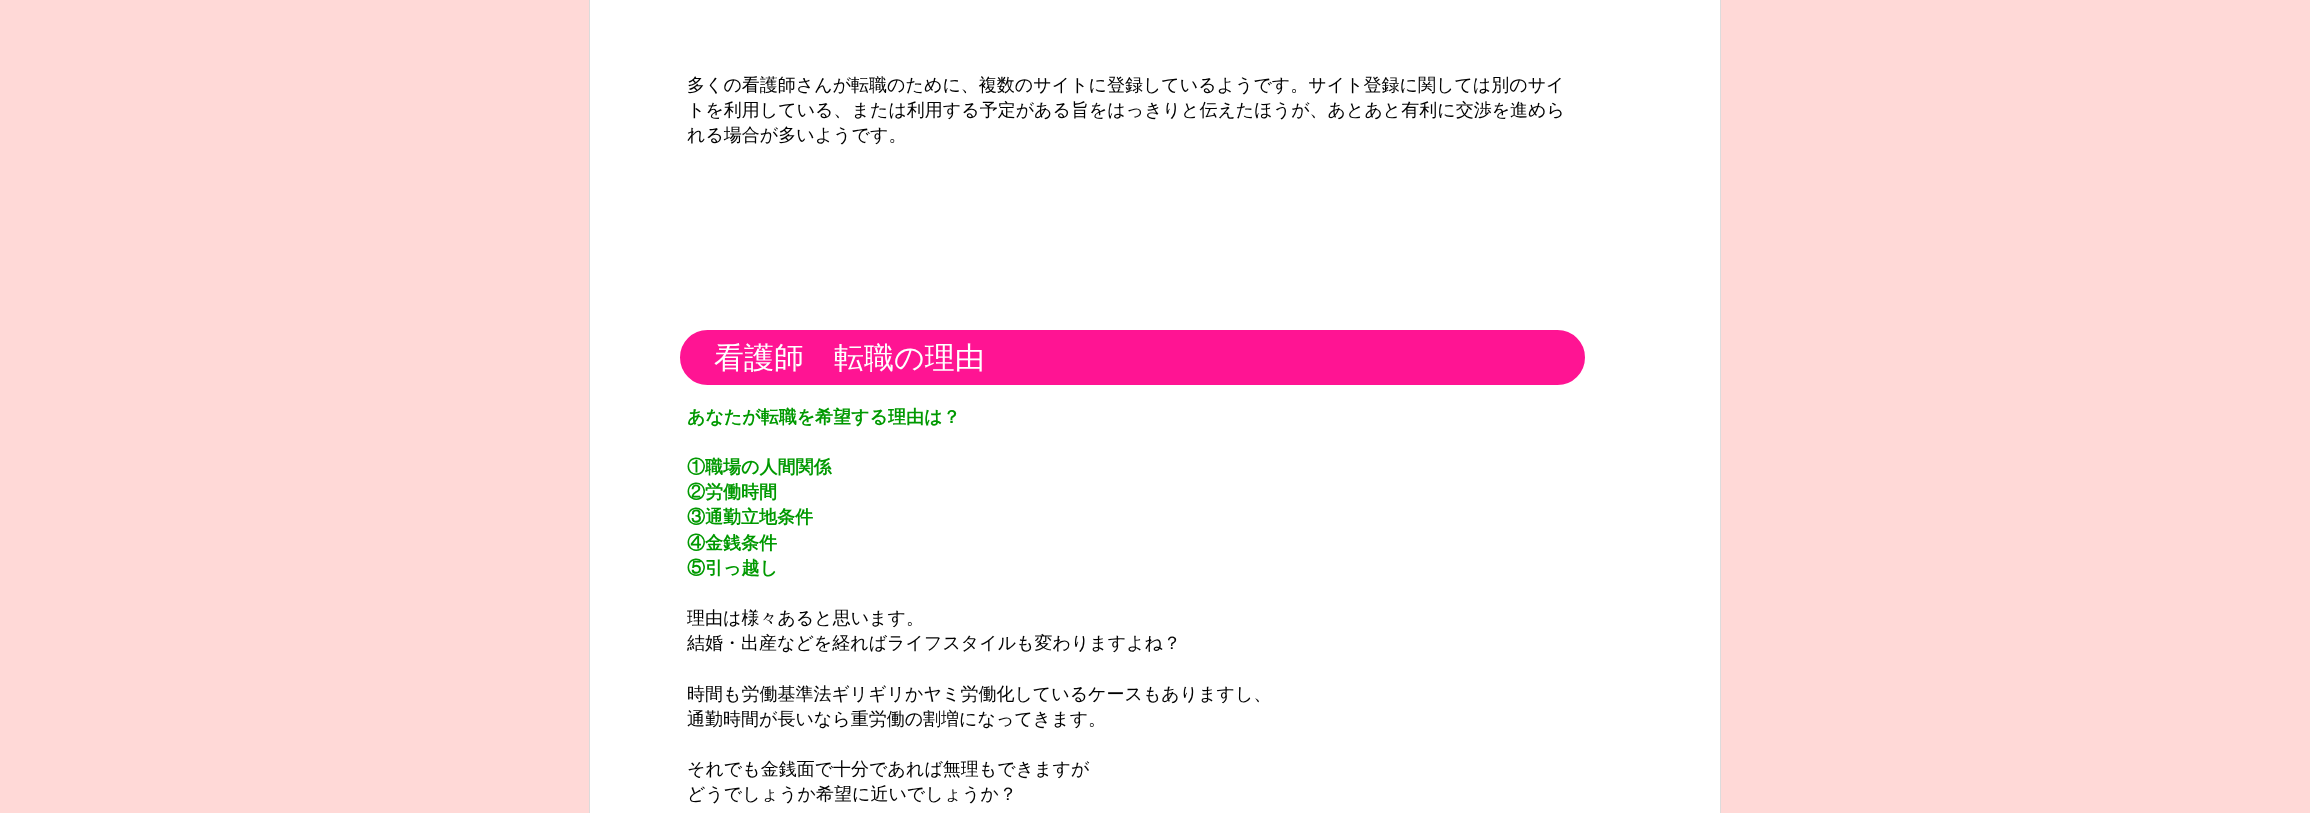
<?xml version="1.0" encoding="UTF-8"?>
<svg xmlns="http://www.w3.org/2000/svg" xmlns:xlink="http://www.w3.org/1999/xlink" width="2310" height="813">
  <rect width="100%" height="100%" fill="#ffd9d7" />
  <rect x="589.5" y="-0.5" width="1131" height="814" fill="#ffffff" stroke="#dcdcdc" />
  <rect x="681.5" y="331.5" width="902" height="52" rx="26" fill="#ff1493" stroke="#ff1493" stroke-width="3" />
  <text x="687" y="91" style="font-family: WenQuanYi Zen Hei; font-size: 18px; font-weight: 500; fill: #000000">多くの看護師さんが転職のために、複数のサイトに登録しているようです。サイト登録に関しては別のサイ</text>
  <text x="687" y="116" style="font-family: WenQuanYi Zen Hei; font-size: 18px; font-weight: 500; fill: #000000">トを利用している、または利用する予定がある旨をはっきりと伝えたほうが、あとあと有利に交渉を進めら</text>
  <text x="687" y="141" style="font-family: WenQuanYi Zen Hei; font-size: 18px; font-weight: 500; fill: #000000">れる場合が多いようです。</text>
  <text x="714" y="368" style="font-family: WenQuanYi Zen Hei; font-size: 30px; font-weight: 500; fill: #ffffff">看護師　転職の理由</text>
  <text x="687" y="423" style="font-family: WenQuanYi Zen Hei; font-size: 18px; font-weight: bold; fill: #009900">あなたが転職を希望する理由は？</text>
  <text x="687" y="473" style="font-family: WenQuanYi Zen Hei; font-size: 18px; font-weight: bold; fill: #009900">①職場の人間関係</text>
  <text x="687" y="498" style="font-family: WenQuanYi Zen Hei; font-size: 18px; font-weight: bold; fill: #009900">②労働時間</text>
  <text x="687" y="523" style="font-family: WenQuanYi Zen Hei; font-size: 18px; font-weight: bold; fill: #009900">③通勤立地条件</text>
  <text x="687" y="549" style="font-family: WenQuanYi Zen Hei; font-size: 18px; font-weight: bold; fill: #009900">④金銭条件</text>
  <text x="687" y="574" style="font-family: WenQuanYi Zen Hei; font-size: 18px; font-weight: bold; fill: #009900">⑤引っ越し</text>
  <text x="687" y="624" style="font-family: WenQuanYi Zen Hei; font-size: 18px; font-weight: 500; fill: #000000">理由は様々あると思います。</text>
  <text x="687" y="649" style="font-family: WenQuanYi Zen Hei; font-size: 18px; font-weight: 500; fill: #000000">結婚・出産などを経ればライフスタイルも変わりますよね？</text>
  <text x="687" y="700" style="font-family: WenQuanYi Zen Hei; font-size: 18px; font-weight: 500; fill: #000000">時間も労働基準法ギリギリかヤミ労働化しているケースもありますし、</text>
  <text x="687" y="725" style="font-family: WenQuanYi Zen Hei; font-size: 18px; font-weight: 500; fill: #000000">通勤時間が長いなら重労働の割増になってきます。</text>
  <text x="687" y="775" style="font-family: WenQuanYi Zen Hei; font-size: 18px; font-weight: 500; fill: #000000">それでも金銭面で十分であれば無理もできますが</text>
  <text x="687" y="800" style="font-family: WenQuanYi Zen Hei; font-size: 18px; font-weight: 500; fill: #000000">どうでしょうか希望に近いでしょうか？</text>
</svg>
